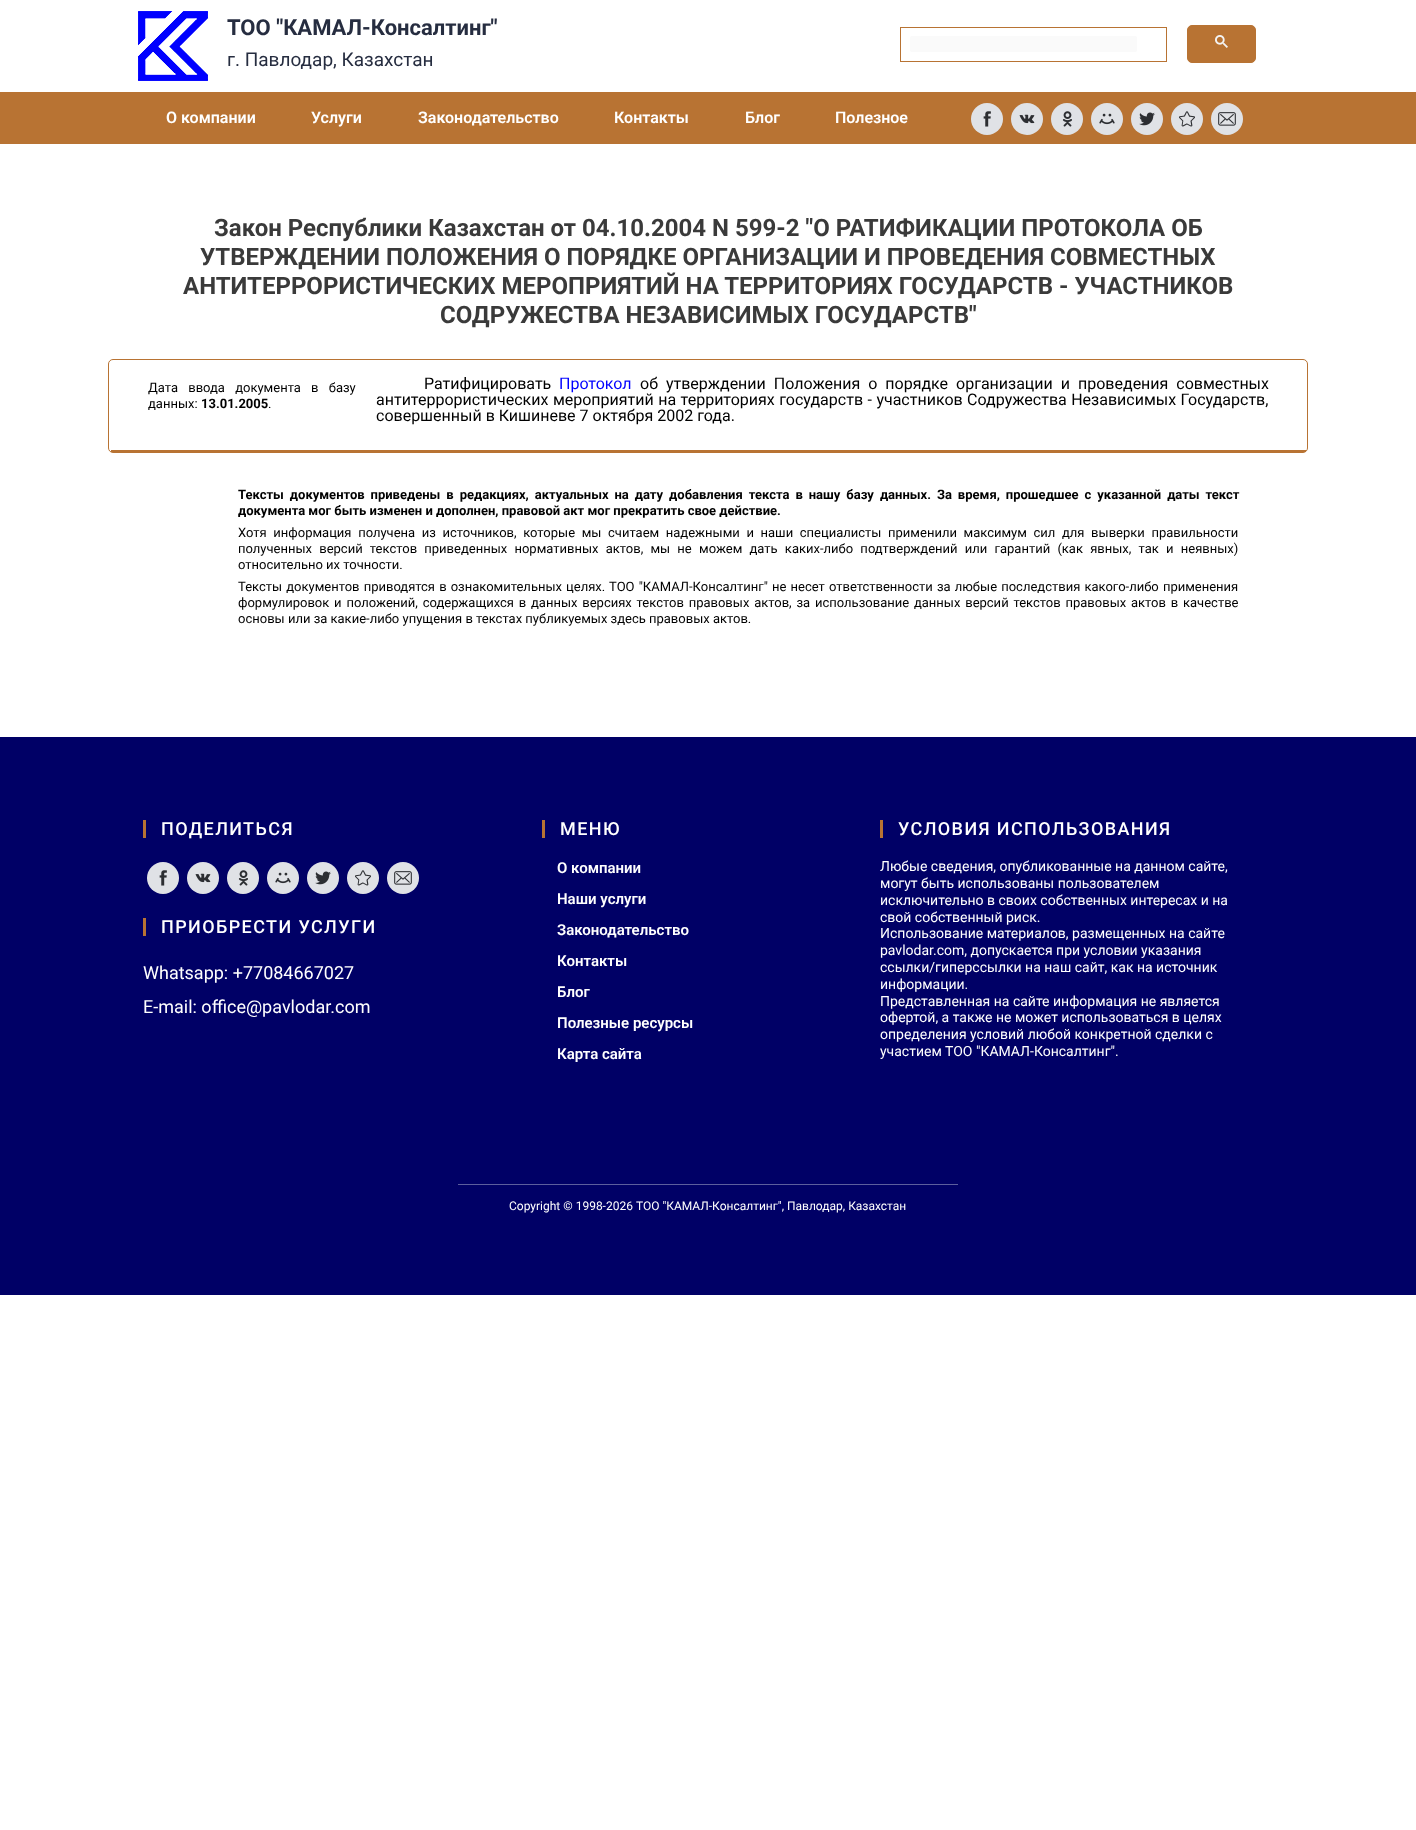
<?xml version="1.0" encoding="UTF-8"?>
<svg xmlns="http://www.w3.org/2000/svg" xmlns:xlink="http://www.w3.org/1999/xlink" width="1416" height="1830">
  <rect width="100%" height="100%" fill="#ffffff" />
  <image x="138" y="11" width="70" height="70" xlink:href="image1.png" />
  <rect x="900.5" y="27.5" width="266" height="34" fill="none" stroke="#b87333" />
  <rect x="910" y="36" width="227" height="16" rx="2" fill="#fafafa" />
  <rect x="1187.5" y="25.5" width="68" height="37" rx="4.5" fill="#b87333" stroke="#b87333" />
  <image x="1215" y="35" width="13" height="13" xlink:href="image2.png" />
  <rect y="92" width="1416" height="52" fill="#b87333" />
  <circle cx="987" cy="119" r="16" fill="#e0e2e6" />
  <image x="983" y="111" width="8" height="16" xlink:href="image3.png" />
  <circle cx="1027" cy="119" r="16" fill="#e0e2e6" />
  <image x="1019" y="114" width="16" height="10" xlink:href="image4.png" />
  <circle cx="1067" cy="119" r="16" fill="#e0e2e6" />
  <image x="1062" y="111" width="10" height="16" xlink:href="image5.png" />
  <circle cx="1107" cy="119" r="16" fill="#e0e2e6" />
  <image x="1099" y="113" width="16" height="12" xlink:href="image6.png" />
  <circle cx="1147" cy="119" r="16" fill="#e0e2e6" />
  <image x="1139" y="112" width="16" height="14" xlink:href="image7.png" />
  <circle cx="1187" cy="119" r="16" fill="#e0e2e6" />
  <image x="1179" y="111" width="16" height="16" xlink:href="image8.png" />
  <circle cx="1227" cy="119" r="16" fill="#e0e2e6" />
  <image x="1218" y="112" width="18" height="14" xlink:href="image9.png" />
  <rect x="108.5" y="359.5" width="1199" height="93" rx="4.5" fill="none" stroke="#b87333" />
  <rect x="111" y="450" width="1195" height="2" fill="#b87333" />
  <rect y="737" width="1416" height="558" fill="#000066" />
  <rect x="143" y="820" width="3" height="18" fill="#b87333" />
  <circle cx="163" cy="878" r="16" fill="#e0e2e6" />
  <image x="159" y="870" width="8" height="16" xlink:href="image3.png" />
  <circle cx="203" cy="878" r="16" fill="#e0e2e6" />
  <image x="195" y="873" width="16" height="10" xlink:href="image4.png" />
  <circle cx="243" cy="878" r="16" fill="#e0e2e6" />
  <image x="238" y="870" width="10" height="16" xlink:href="image5.png" />
  <circle cx="283" cy="878" r="16" fill="#e0e2e6" />
  <image x="275" y="872" width="16" height="12" xlink:href="image6.png" />
  <circle cx="323" cy="878" r="16" fill="#e0e2e6" />
  <image x="315" y="871" width="16" height="14" xlink:href="image7.png" />
  <circle cx="363" cy="878" r="16" fill="#e0e2e6" />
  <image x="355" y="870" width="16" height="16" xlink:href="image8.png" />
  <circle cx="403" cy="878" r="16" fill="#e0e2e6" />
  <image x="394" y="871" width="18" height="14" xlink:href="image9.png" />
  <rect x="143" y="918" width="3" height="18" fill="#b87333" />
  <rect x="542" y="820" width="3" height="18" fill="#b87333" />
  <rect x="880" y="820" width="3" height="18" fill="#b87333" />
  <rect x="458" y="1184" width="500" height="1" fill="#5c5e9d" />
  <text x="227" y="35" style="font-family: Roboto; font-size: 22px; font-weight: bold; fill: #262d40">ТОО "КАМАЛ-Консалтинг"</text>
  <text x="227" y="66" style="font-family: Roboto; font-size: 19px; fill: #262d40">г. Павлодар, Казахстан</text>
  <text x="166" y="123" style="font-family: Roboto; font-size: 16px; font-weight: 600; fill: #ffffff">О компании</text>
  <text x="311" y="123" style="font-family: Roboto; font-size: 16px; font-weight: 600; fill: #ffffff">Услуги</text>
  <text x="418" y="123" style="font-family: Roboto; font-size: 16px; font-weight: 600; fill: #ffffff">Законодательство</text>
  <text x="614" y="123" style="font-family: Roboto; font-size: 16px; font-weight: 600; fill: #ffffff">Контакты</text>
  <text x="745" y="123" style="font-family: Roboto; font-size: 16px; font-weight: 600; fill: #ffffff">Блог</text>
  <text x="835" y="123" style="font-family: Roboto; font-size: 16px; font-weight: 600; fill: #ffffff">Полезное</text>
  <text x="214" y="236" style="font-family: Roboto; font-size: 24px; font-weight: bold; fill: #3a3a3a">Закон Республики Казахстан от 04.10.2004 N 599-2 "О РАТИФИКАЦИИ ПРОТОКОЛА ОБ</text>
  <text x="200" y="265" style="font-family: Roboto; font-size: 24px; font-weight: bold; fill: #3a3a3a">УТВЕРЖДЕНИИ ПОЛОЖЕНИЯ О ПОРЯДКЕ ОРГАНИЗАЦИИ И ПРОВЕДЕНИЯ СОВМЕСТНЫХ</text>
  <text x="183" y="294" style="font-family: Roboto; font-size: 24px; font-weight: bold; fill: #3a3a3a">АНТИТЕРРОРИСТИЧЕСКИХ МЕРОПРИЯТИЙ НА ТЕРРИТОРИЯХ ГОСУДАРСТВ - УЧАСТНИКОВ</text>
  <text x="440" y="323" style="font-family: Roboto; font-size: 24px; font-weight: bold; fill: #3a3a3a">СОДРУЖЕСТВА НЕЗАВИСИМЫХ ГОСУДАРСТВ"</text>
  <text x="148" y="392" word-spacing="7" style="font-family: Roboto; font-size: 13px; fill: #000000">Дата ввода документа в базу</text>
  <text x="148" y="408" style="font-family: Roboto; font-size: 13px; fill: #000000">данных:</text>
  <text x="201" y="408" style="font-family: Roboto; font-size: 13px; font-weight: bold; fill: #000000">13.01.2005</text>
  <text x="268" y="408" style="font-family: Roboto; font-size: 13px; fill: #000000">.</text>
  <text x="424" y="389" style="font-family: Roboto; font-size: 16px; fill: #000000">Ратифицировать</text>
  <text x="559" y="389" style="font-family: Roboto; font-size: 16px; fill: #0000ff">Протокол</text>
  <text x="640" y="389" word-spacing="4" style="font-family: Roboto; font-size: 16px; fill: #000000">об утверждении Положения о порядке организации и проведения совместных</text>
  <text x="376" y="405" word-spacing="0.5" style="font-family: Roboto; font-size: 16px; fill: #000000">антитеррористических мероприятий на территориях государств - участников Содружества Независимых Государств,</text>
  <text x="376" y="421" style="font-family: Roboto; font-size: 16px; fill: #000000">совершенный в Кишиневе 7 октября 2002 года.</text>
  <text x="238" y="499" word-spacing="2.75" style="font-family: Roboto; font-size: 13px; font-weight: bold; fill: #000000">Тексты документов приведены в редакциях, актуальных на дату добавления текста в нашу базу данных. За время, прошедшее с указанной даты текст</text>
  <text x="238" y="515" style="font-family: Roboto; font-size: 13px; font-weight: bold; fill: #000000">документа мог быть изменен и дополнен, правовой акт мог прекратить свое действие.</text>
  <text x="238" y="537" word-spacing="3.4" style="font-family: Roboto; font-size: 13px; fill: #000000">Хотя информация получена из источников, которые мы считаем надежными и наши специалисты применили максимум сил для выверки правильности</text>
  <text x="238" y="553" word-spacing="4" style="font-family: Roboto; font-size: 13px; fill: #000000">полученных версий текстов приведенных нормативных актов, мы не можем дать каких-либо подтверждений или гарантий (как явных, так и неявных)</text>
  <text x="238" y="569" style="font-family: Roboto; font-size: 13px; fill: #000000">относительно их точности.</text>
  <text x="238" y="591" word-spacing="0.9" style="font-family: Roboto; font-size: 13px; fill: #000000">Тексты документов приводятся в ознакомительных целях. ТОО "КАМАЛ-Консалтинг" не несет ответственности за любые последствия какого-либо применения</text>
  <text x="238" y="607" word-spacing="1.6" style="font-family: Roboto; font-size: 13px; fill: #000000">формулировок и положений, содержащихся в данных версиях текстов правовых актов, за использование данных версий текстов правовых актов в качестве</text>
  <text x="238" y="623" style="font-family: Roboto; font-size: 13px; fill: #000000">основы или за какие-либо упущения в текстах публикуемых здесь правовых актов.</text>
  <text x="161" y="835" style="font-family: Roboto; font-size: 18px; font-weight: 500; letter-spacing: 1.4px; fill: #ffffff">ПОДЕЛИТЬСЯ</text>
  <text x="161" y="933" style="font-family: Roboto; font-size: 18px; font-weight: 500; letter-spacing: 1.4px; fill: #ffffff">ПРИОБРЕСТИ УСЛУГИ</text>
  <text x="143" y="979" style="font-family: Roboto; font-size: 18px; fill: #ffffff">Whatsapp: +77084667027</text>
  <text x="143" y="1013" style="font-family: Roboto; font-size: 18px; fill: #ffffff">E-mail: office@pavlodar.com</text>
  <text x="560" y="835" style="font-family: Roboto; font-size: 18px; font-weight: 500; letter-spacing: 1.4px; fill: #ffffff">МЕНЮ</text>
  <text x="557" y="873" style="font-family: Roboto; font-size: 15px; font-weight: 600; fill: #ffffff">О компании</text>
  <text x="557" y="904" style="font-family: Roboto; font-size: 15px; font-weight: 600; fill: #ffffff">Наши услуги</text>
  <text x="557" y="935" style="font-family: Roboto; font-size: 15px; font-weight: 600; fill: #ffffff">Законодательство</text>
  <text x="557" y="966" style="font-family: Roboto; font-size: 15px; font-weight: 600; fill: #ffffff">Контакты</text>
  <text x="557" y="997" style="font-family: Roboto; font-size: 15px; font-weight: 600; fill: #ffffff">Блог</text>
  <text x="557" y="1028" style="font-family: Roboto; font-size: 15px; font-weight: 600; fill: #ffffff">Полезные ресурсы</text>
  <text x="557" y="1059" style="font-family: Roboto; font-size: 15px; font-weight: 600; fill: #ffffff">Карта сайта</text>
  <text x="898" y="835" style="font-family: Roboto; font-size: 18px; font-weight: 500; letter-spacing: 1.4px; fill: #ffffff">УСЛОВИЯ ИСПОЛЬЗОВАНИЯ</text>
  <text x="880" y="871" style="font-family: Roboto; font-size: 14px; fill: #ffffff">Любые сведения, опубликованные на данном сайте,</text>
  <text x="880" y="888" style="font-family: Roboto; font-size: 14px; fill: #ffffff">могут быть использованы пользователем</text>
  <text x="880" y="905" style="font-family: Roboto; font-size: 14px; fill: #ffffff">исключительно в своих собственных интересах и на</text>
  <text x="880" y="922" style="font-family: Roboto; font-size: 14px; fill: #ffffff">свой собственный риск.</text>
  <text x="880" y="938" style="font-family: Roboto; font-size: 14px; fill: #ffffff">Использование материалов, размещенных на сайте</text>
  <text x="880" y="955" style="font-family: Roboto; font-size: 14px; fill: #ffffff">pavlodar.com, допускается при условии указания</text>
  <text x="880" y="972" style="font-family: Roboto; font-size: 14px; fill: #ffffff">ссылки/гиперссылки на наш сайт, как на источник</text>
  <text x="880" y="989" style="font-family: Roboto; font-size: 14px; fill: #ffffff">информации.</text>
  <text x="880" y="1006" style="font-family: Roboto; font-size: 14px; fill: #ffffff">Представленная на сайте информация не является</text>
  <text x="880" y="1022" style="font-family: Roboto; font-size: 14px; fill: #ffffff">офертой, а также не может использоваться в целях</text>
  <text x="880" y="1039" style="font-family: Roboto; font-size: 14px; fill: #ffffff">определения условий любой конкретной сделки с</text>
  <text x="880" y="1056" style="font-family: Roboto; font-size: 14px; fill: #ffffff">участием ТОО "КАМАЛ-Консалтинг".</text>
  <text x="509" y="1210" style="font-family: Roboto; font-size: 12px; fill: #ffffff">Copyright © 1998-2026 ТОО "КАМАЛ-Консалтинг", Павлодар, Казахстан</text>
</svg>
